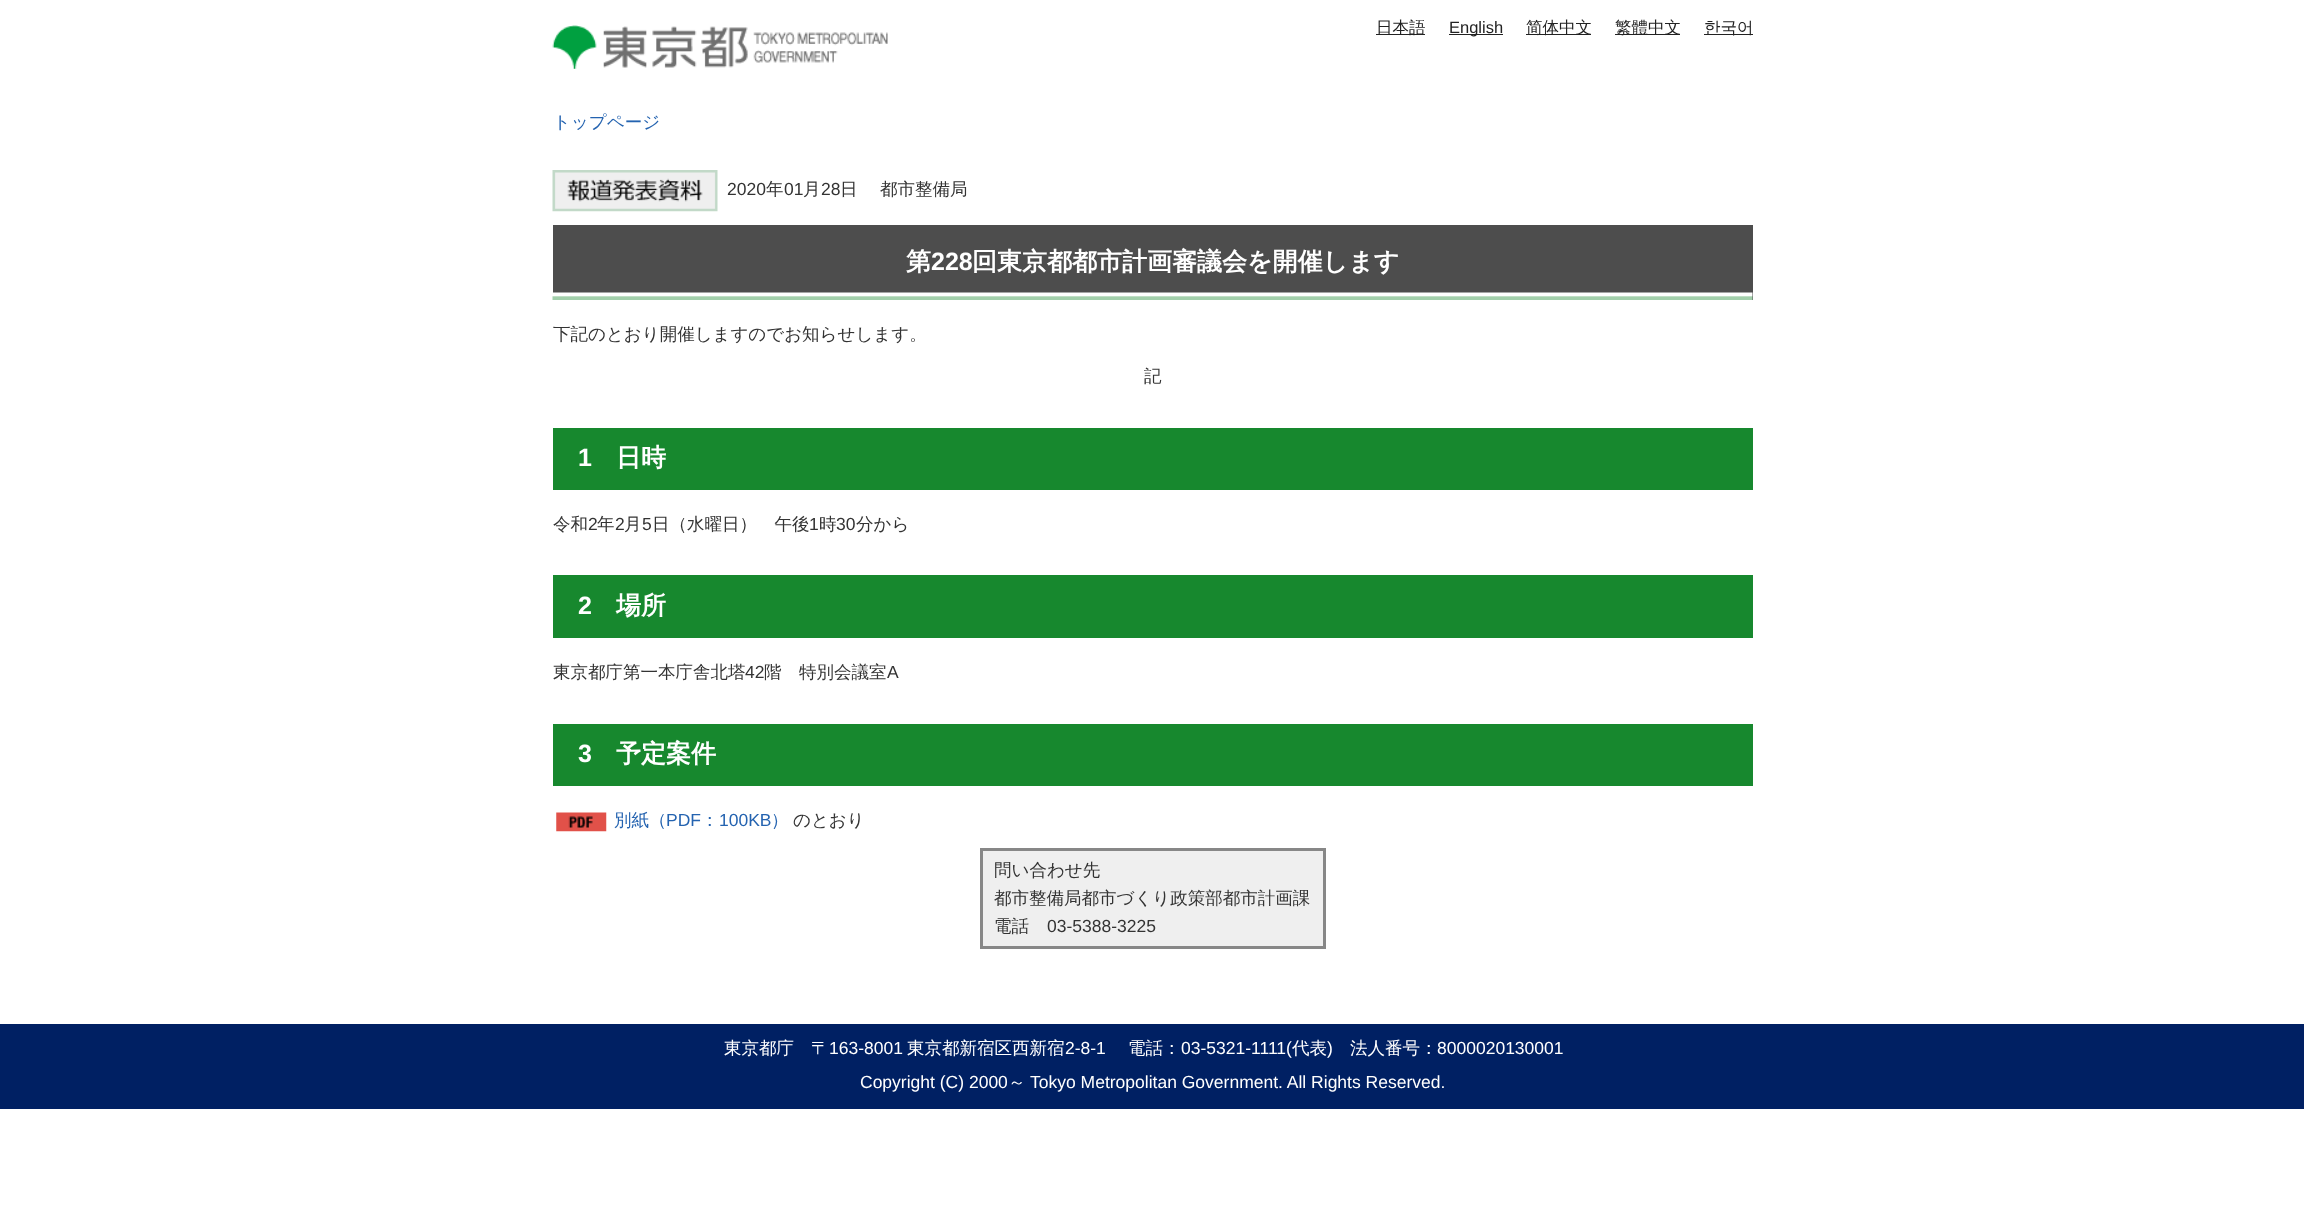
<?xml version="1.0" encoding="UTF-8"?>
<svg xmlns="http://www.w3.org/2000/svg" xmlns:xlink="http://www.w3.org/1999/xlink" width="2304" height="1218">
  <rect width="100%" height="100%" fill="#ffffff" />
  <image x="552" y="25" width="336" height="44" xlink:href="image1.png" />
  <rect x="1376" y="34" width="49" height="1" fill="#222222" />
  <rect x="1449" y="34" width="54" height="1" fill="#222222" />
  <rect x="1526" y="34" width="65" height="1" fill="#222222" />
  <rect x="1615" y="34" width="65" height="1" fill="#222222" />
  <rect x="1704" y="34" width="49" height="1" fill="#222222" />
  <image x="552" y="170" width="166" height="42" xlink:href="image2.png" />
  <rect x="553" y="225" width="1200" height="75" fill="#4d4d4d" />
  <image x="552" y="292" width="1201" height="8" xlink:href="image3.png" />
  <rect x="553" y="428" width="1200" height="62" fill="#17882e" />
  <rect x="553" y="575" width="1200" height="63" fill="#17882e" />
  <rect x="553" y="724" width="1200" height="62" fill="#17882e" />
  <image x="556" y="812" width="51" height="20" xlink:href="image4.png" />
  <rect x="983" y="851" width="340" height="95" fill="#efefef" />
  <rect x="980" y="848" width="345" height="3" fill="#878787" />
  <rect x="1323" y="848" width="3" height="101" fill="#878787" />
  <rect x="980" y="946" width="345" height="3" fill="#878787" />
  <rect x="980" y="848" width="3" height="101" fill="#878787" />
  <rect y="1024" width="2304" height="85" fill="#002063" />
  <text x="1376" y="33" style="font-family: WenQuanYi Zen Hei; font-size: 16.5px; font-weight: 500; fill: #222222">日本語</text>
  <text x="1449" y="33" style="font-family: Liberation Sans; font-size: 16.5px; fill: #222222">English</text>
  <text x="1526" y="33" style="font-family: WenQuanYi Zen Hei; font-size: 16.5px; font-weight: 500; fill: #222222">简体中文</text>
  <text x="1615" y="33" style="font-family: WenQuanYi Zen Hei; font-size: 16.5px; font-weight: 500; fill: #222222">繁體中文</text>
  <text x="1704" y="33" style="font-family: WenQuanYi Zen Hei; font-size: 16.5px; font-weight: 500; fill: #222222">한국어</text>
  <text x="553" y="128" style="font-family: WenQuanYi Zen Hei; font-size: 17.5px; font-weight: 500; fill: #2463b0">トップページ</text>
  <text x="727" y="195" style="font-family: Liberation Sans; font-size: 17.5px; fill: #333333">2020</text>
  <text x="766" y="195" style="font-family: WenQuanYi Zen Hei; font-size: 17.5px; font-weight: 500; fill: #333333">年</text>
  <text x="784" y="195" style="font-family: Liberation Sans; font-size: 17.5px; fill: #333333">01</text>
  <text x="803" y="195" style="font-family: WenQuanYi Zen Hei; font-size: 17.5px; font-weight: 500; fill: #333333">月</text>
  <text x="821" y="195" style="font-family: Liberation Sans; font-size: 17.5px; fill: #333333">28</text>
  <text x="840" y="195" style="font-family: WenQuanYi Zen Hei; font-size: 17.5px; font-weight: 500; fill: #333333">日</text>
  <text x="880" y="195" style="font-family: WenQuanYi Zen Hei; font-size: 17.5px; font-weight: 500; fill: #333333">都市整備局</text>
  <text x="906" y="270" style="font-family: WenQuanYi Zen Hei; font-size: 25px; font-weight: bold; fill: #ffffff">第</text>
  <text x="931" y="270" style="font-family: Liberation Sans; font-size: 25px; font-weight: bold; fill: #ffffff">228</text>
  <text x="972" y="270" style="font-family: WenQuanYi Zen Hei; font-size: 25px; font-weight: bold; fill: #ffffff">回東京都都市計画審議会を開催します</text>
  <text x="553" y="340" style="font-family: WenQuanYi Zen Hei; font-size: 17.5px; font-weight: 500; fill: #333333">下記のとおり開催しますのでお知らせします。</text>
  <text x="1144" y="382" style="font-family: WenQuanYi Zen Hei; font-size: 17.5px; font-weight: 500; fill: #333333">記</text>
  <text x="578" y="466" style="font-family: Liberation Sans; font-size: 25px; font-weight: bold; fill: #ffffff">1</text>
  <text x="616" y="466" style="font-family: WenQuanYi Zen Hei; font-size: 25px; font-weight: bold; fill: #ffffff">日時</text>
  <text x="553" y="530" style="font-family: WenQuanYi Zen Hei; font-size: 17.5px; font-weight: 500; fill: #333333">令和</text>
  <text x="588" y="530" style="font-family: Liberation Sans; font-size: 17.5px; fill: #333333">2</text>
  <text x="597" y="530" style="font-family: WenQuanYi Zen Hei; font-size: 17.5px; font-weight: 500; fill: #333333">年</text>
  <text x="615" y="530" style="font-family: Liberation Sans; font-size: 17.5px; fill: #333333">2</text>
  <text x="624" y="530" style="font-family: WenQuanYi Zen Hei; font-size: 17.5px; font-weight: 500; fill: #333333">月</text>
  <text x="642" y="530" style="font-family: Liberation Sans; font-size: 17.5px; fill: #333333">5</text>
  <text x="652" y="530" style="font-family: WenQuanYi Zen Hei; font-size: 17.5px; font-weight: 500; fill: #333333">日（水曜日）　午後</text>
  <text x="809" y="530" style="font-family: Liberation Sans; font-size: 17.5px; fill: #333333">1</text>
  <text x="819" y="530" style="font-family: WenQuanYi Zen Hei; font-size: 17.5px; font-weight: 500; fill: #333333">時</text>
  <text x="836" y="530" style="font-family: Liberation Sans; font-size: 17.5px; fill: #333333">30</text>
  <text x="856" y="530" style="font-family: WenQuanYi Zen Hei; font-size: 17.5px; font-weight: 500; fill: #333333">分から</text>
  <text x="578" y="614" style="font-family: Liberation Sans; font-size: 25px; font-weight: bold; fill: #ffffff">2</text>
  <text x="616" y="614" style="font-family: WenQuanYi Zen Hei; font-size: 25px; font-weight: bold; fill: #ffffff">場所</text>
  <text x="553" y="678" style="font-family: WenQuanYi Zen Hei; font-size: 17.5px; font-weight: 500; fill: #333333">東京都庁第一本庁舎北塔</text>
  <text x="745" y="678" style="font-family: Liberation Sans; font-size: 17.5px; fill: #333333">42</text>
  <text x="764" y="678" style="font-family: WenQuanYi Zen Hei; font-size: 17.5px; font-weight: 500; fill: #333333">階　特別会議室</text>
  <text x="887" y="678" style="font-family: Liberation Sans; font-size: 17.5px; fill: #333333">A</text>
  <text x="578" y="762" style="font-family: Liberation Sans; font-size: 25px; font-weight: bold; fill: #ffffff">3</text>
  <text x="616" y="762" style="font-family: WenQuanYi Zen Hei; font-size: 25px; font-weight: bold; fill: #ffffff">予定案件</text>
  <text x="614" y="826" style="font-family: WenQuanYi Zen Hei; font-size: 17.5px; font-weight: 500; fill: #2463b0">別紙（</text>
  <text x="666" y="826" style="font-family: Liberation Sans; font-size: 17.5px; fill: #2463b0">PDF</text>
  <text x="701" y="826" style="font-family: WenQuanYi Zen Hei; font-size: 17.5px; font-weight: 500; fill: #2463b0">：</text>
  <text x="719" y="826" style="font-family: Liberation Sans; font-size: 17.5px; fill: #2463b0">100KB</text>
  <text x="771" y="826" style="font-family: WenQuanYi Zen Hei; font-size: 17.5px; font-weight: 500; fill: #2463b0">）</text>
  <text x="793" y="826" style="font-family: WenQuanYi Zen Hei; font-size: 17.5px; font-weight: 500; fill: #333333">のとおり</text>
  <text x="994" y="876" style="font-family: WenQuanYi Zen Hei; font-size: 17.5px; font-weight: 500; fill: #333333">問い合わせ先</text>
  <text x="994" y="904" style="font-family: WenQuanYi Zen Hei; font-size: 17.5px; font-weight: 500; fill: #333333">都市整備局都市づくり政策部都市計画課</text>
  <text x="994" y="932" style="font-family: WenQuanYi Zen Hei; font-size: 17.5px; font-weight: 500; fill: #333333">電話</text>
  <text x="1047" y="932" style="font-family: Liberation Sans; font-size: 17.5px; fill: #333333">03-5388-3225</text>
  <text x="724" y="1054" style="font-family: WenQuanYi Zen Hei; font-size: 17.5px; font-weight: 500; fill: #ffffff">東京都庁</text>
  <text x="811" y="1054" style="font-family: WenQuanYi Zen Hei; font-size: 17.5px; font-weight: 500; fill: #ffffff">〒</text>
  <text x="829" y="1054" style="font-family: Liberation Sans; font-size: 17.5px; fill: #ffffff">163-8001</text>
  <text x="907" y="1054" style="font-family: WenQuanYi Zen Hei; font-size: 17.5px; font-weight: 500; fill: #ffffff">東京都新宿区西新宿</text>
  <text x="1065" y="1054" style="font-family: Liberation Sans; font-size: 17.5px; fill: #ffffff">2-8-1</text>
  <text x="1128" y="1054" style="font-family: WenQuanYi Zen Hei; font-size: 17.5px; font-weight: 500; fill: #ffffff">電話：</text>
  <text x="1181" y="1054" style="font-family: Liberation Sans; font-size: 17.5px; fill: #ffffff">03-5321-1111(</text>
  <text x="1292" y="1054" style="font-family: WenQuanYi Zen Hei; font-size: 17.5px; font-weight: 500; fill: #ffffff">代表</text>
  <text x="1327" y="1054" style="font-family: Liberation Sans; font-size: 17.5px; fill: #ffffff">)</text>
  <text x="1350" y="1054" style="font-family: WenQuanYi Zen Hei; font-size: 17.5px; font-weight: 500; fill: #ffffff">法人番号：</text>
  <text x="1437" y="1054" style="font-family: Liberation Sans; font-size: 17.5px; fill: #ffffff">8000020130001</text>
  <text x="860" y="1088" style="font-family: Liberation Sans; font-size: 17.5px; fill: #ffffff">Copyright (C) 2000</text>
  <text x="1008" y="1088" style="font-family: WenQuanYi Zen Hei; font-size: 17.5px; font-weight: 500; fill: #ffffff">～</text>
  <text x="1030" y="1088" style="font-family: Liberation Sans; font-size: 17.5px; fill: #ffffff">Tokyo Metropolitan Government. All Rights Reserved.</text>
</svg>
